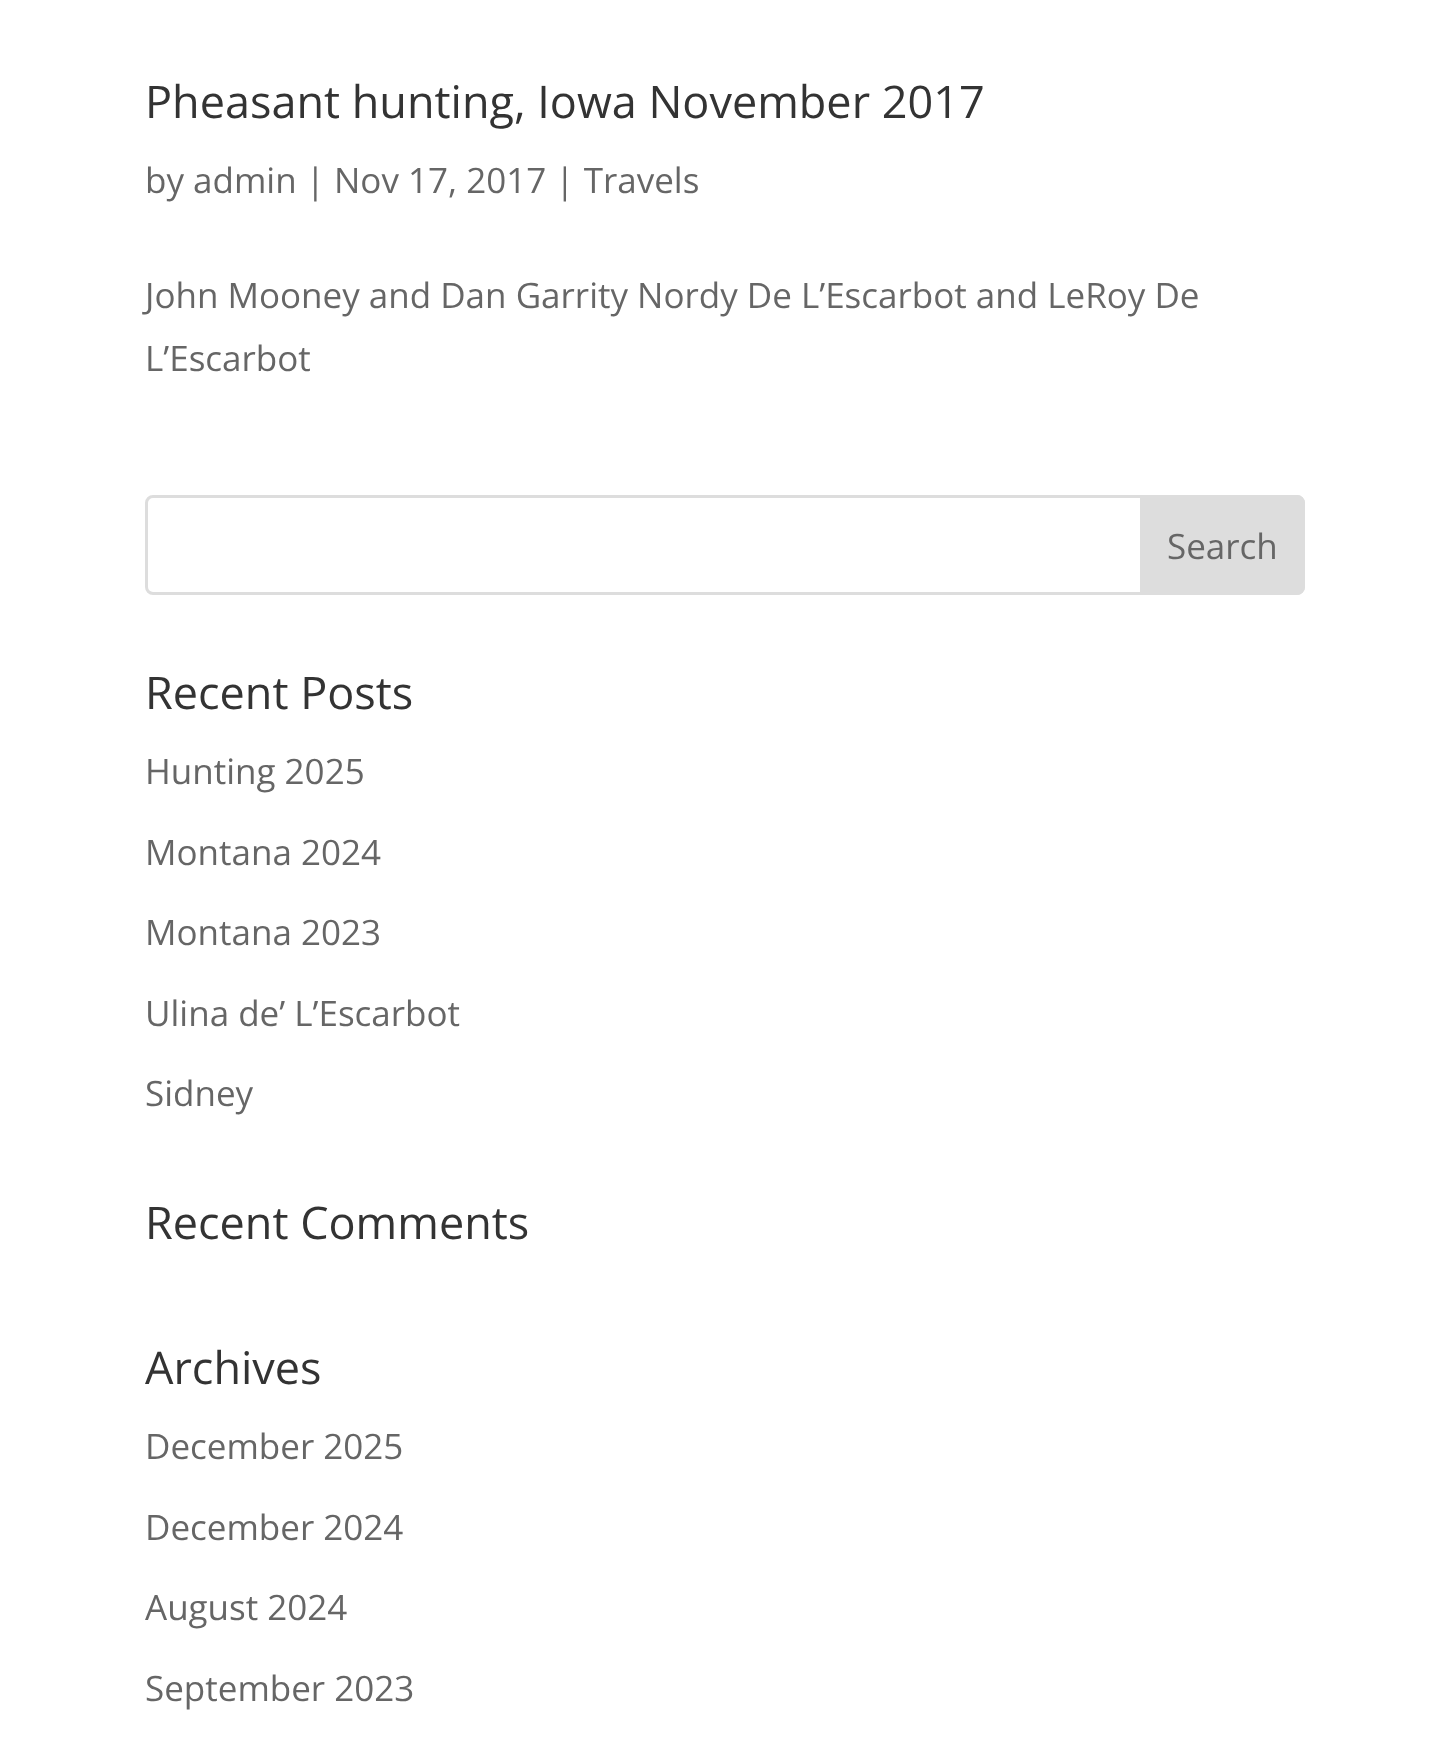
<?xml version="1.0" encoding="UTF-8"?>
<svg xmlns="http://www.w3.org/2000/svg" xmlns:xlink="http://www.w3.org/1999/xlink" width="1450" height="1745">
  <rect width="100%" height="100%" fill="#ffffff" />
  <rect x="146.5" y="496.5" width="1157" height="97" rx="6.5" fill="none" stroke="#dddddd" stroke-width="3" />
  <path d="M 1141.5 496.5 h 155.5 c 3.5 0 6.5 3 6.5 6.5 v 84 c 0 3.5 -3 6.5 -6.5 6.5 h -155.5 z" fill="#dddddd" stroke="#dddddd" stroke-width="3" />
  <text x="145" y="118" style="font-family: Open Sans; font-size: 45px; fill: #333333">Pheasant hunting, Iowa November 2017</text>
  <text x="145" y="193" style="font-family: Open Sans; font-size: 35px; fill: #666666">by admin | Nov 17, 2017 | Travels</text>
  <text x="145" y="308" style="font-family: Open Sans; font-size: 35px; fill: #666666">John Mooney and Dan Garrity Nordy De L’Escarbot and LeRoy De</text>
  <text x="145" y="371" style="font-family: Open Sans; font-size: 35px; fill: #666666">L’Escarbot</text>
  <text x="1167" y="559" style="font-family: Open Sans; font-size: 35px; fill: #666666">Search</text>
  <text x="145" y="709" style="font-family: Open Sans; font-size: 45px; fill: #333333">Recent Posts</text>
  <text x="145" y="784" style="font-family: Open Sans; font-size: 35px; fill: #666666">Hunting 2025</text>
  <text x="145" y="865" style="font-family: Open Sans; font-size: 35px; fill: #666666">Montana 2024</text>
  <text x="145" y="945" style="font-family: Open Sans; font-size: 35px; fill: #666666">Montana 2023</text>
  <text x="145" y="1026" style="font-family: Open Sans; font-size: 35px; fill: #666666">Ulina de’ L’Escarbot</text>
  <text x="145" y="1106" style="font-family: Open Sans; font-size: 35px; fill: #666666">Sidney</text>
  <text x="145" y="1239" style="font-family: Open Sans; font-size: 45px; fill: #333333">Recent Comments</text>
  <text x="145" y="1384" style="font-family: Open Sans; font-size: 45px; fill: #333333">Archives</text>
  <text x="145" y="1459" style="font-family: Open Sans; font-size: 35px; fill: #666666">December 2025</text>
  <text x="145" y="1540" style="font-family: Open Sans; font-size: 35px; fill: #666666">December 2024</text>
  <text x="145" y="1620" style="font-family: Open Sans; font-size: 35px; fill: #666666">August 2024</text>
  <text x="145" y="1701" style="font-family: Open Sans; font-size: 35px; fill: #666666">September 2023</text>
</svg>
